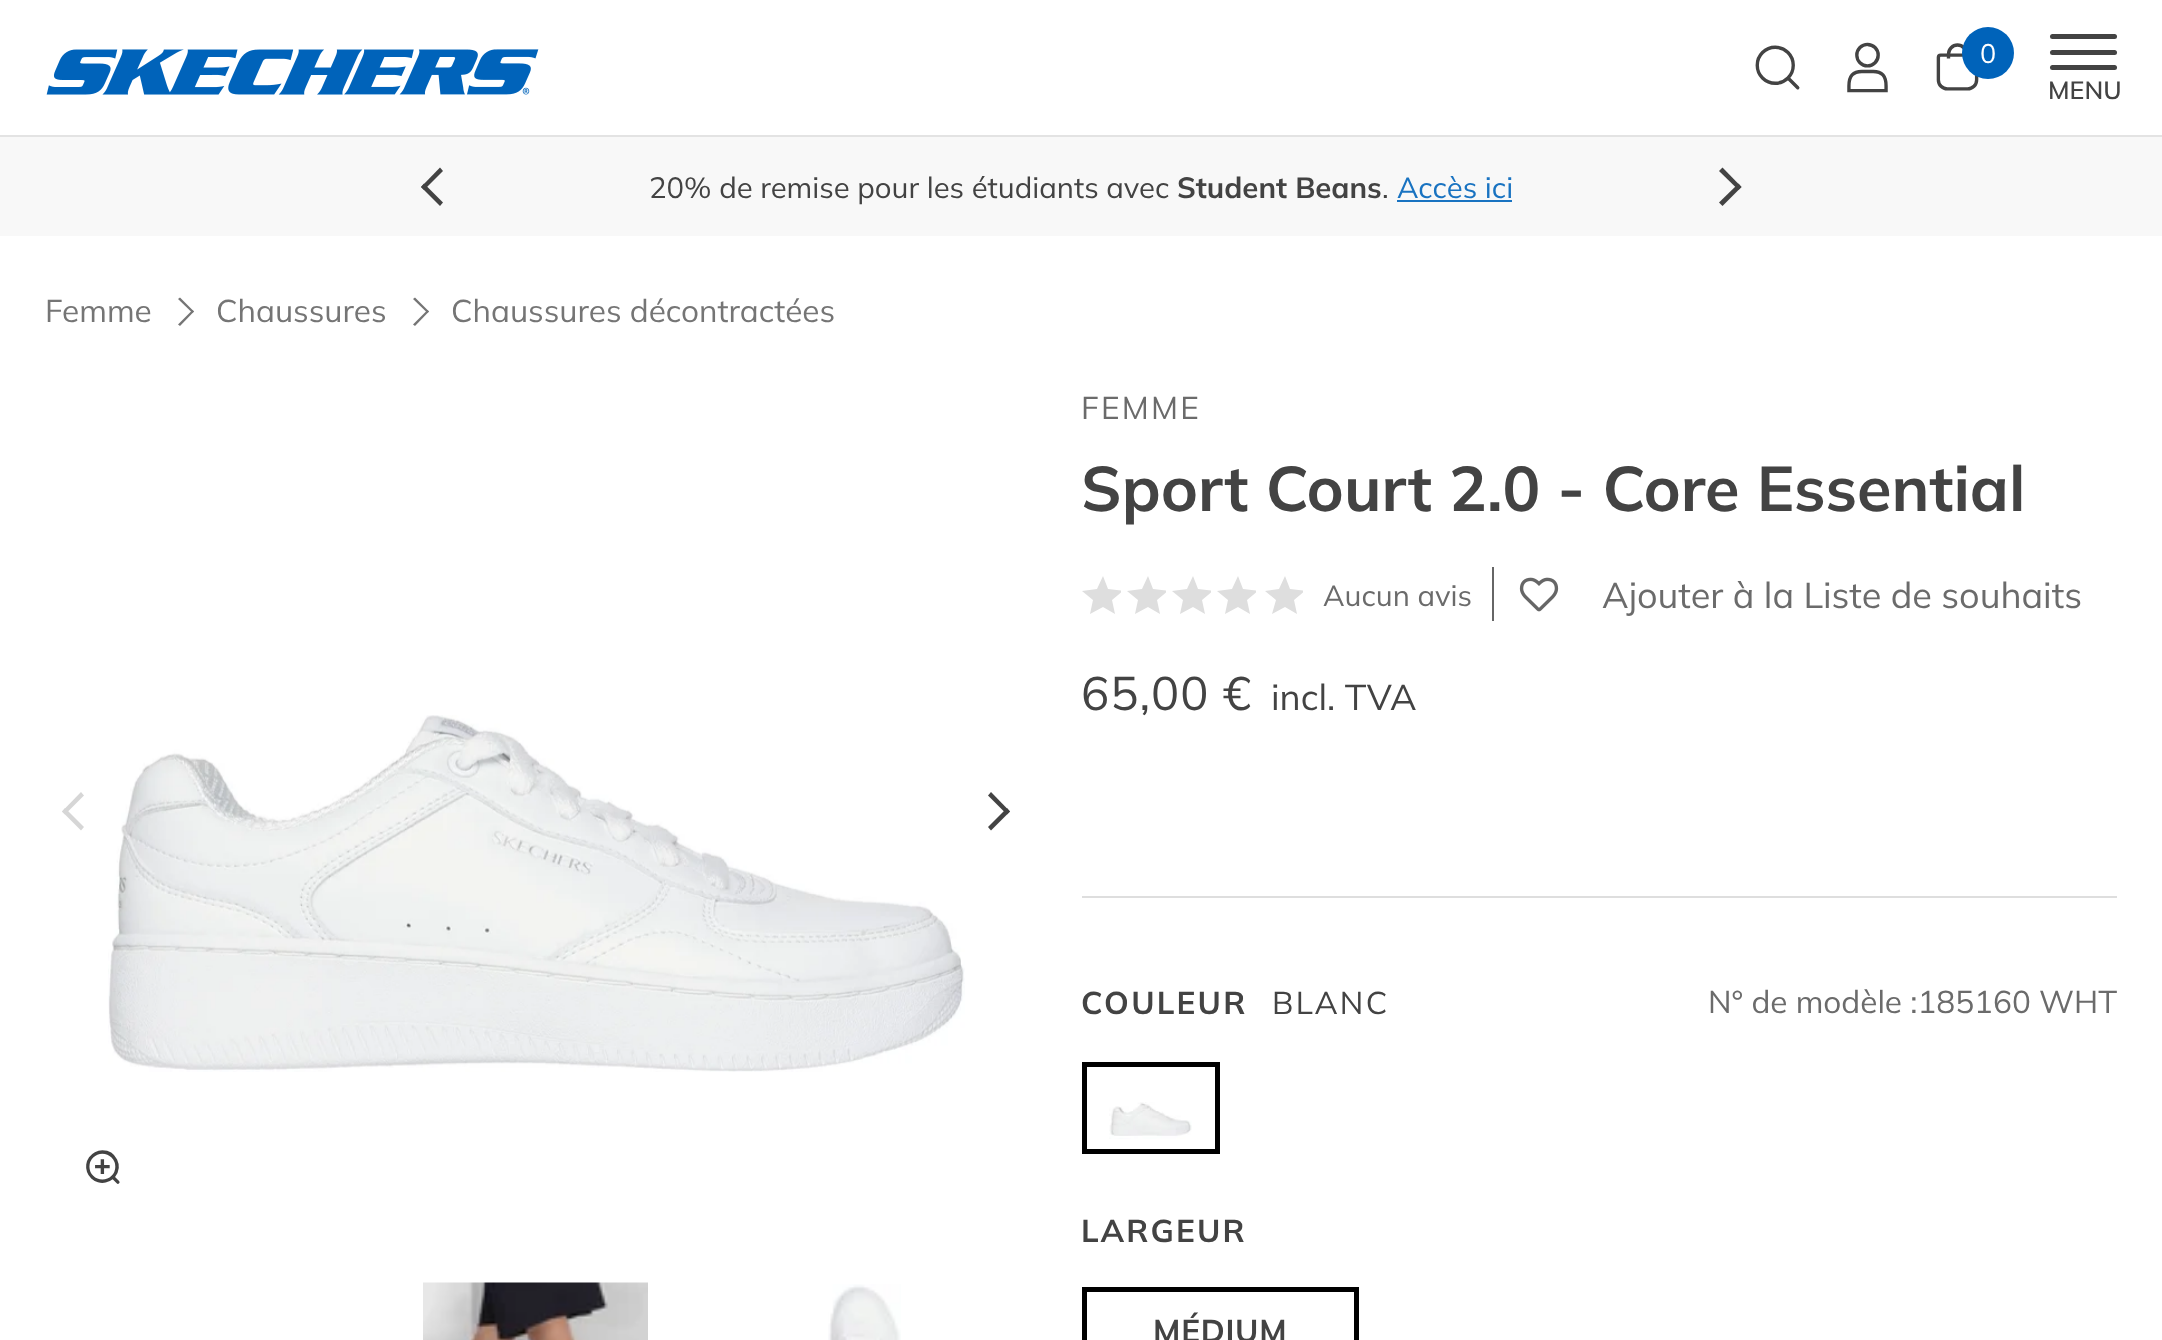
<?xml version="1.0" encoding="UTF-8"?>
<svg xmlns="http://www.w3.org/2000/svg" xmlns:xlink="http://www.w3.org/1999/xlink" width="2162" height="1340">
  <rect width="100%" height="100%" fill="#ffffff" />
  <rect y="135" width="2162" height="2" fill="#e3e3e3" />
  <image x="46" y="49" width="493" height="46" xlink:href="image1.png" />
  <image x="1755" y="45" width="45" height="45" xlink:href="image2.png" />
  <image x="1847" y="42" width="41" height="51" xlink:href="image3.png" />
  <image x="1936" y="43" width="43" height="48" xlink:href="image4.png" />
  <circle cx="1988" cy="53" r="26" fill="#0063ba" />
  <rect x="2050" y="34" width="67" height="5" rx="2.5" fill="#434343" />
  <rect x="2050" y="50" width="67" height="5" rx="2.5" fill="#434343" />
  <rect x="2050" y="65" width="67" height="5" rx="2.5" fill="#434343" />
  <rect y="137" width="2162" height="99" fill="#f8f8f8" />
  <path d="M 424 183.5 l 19 19 l -3 3.5 l -19 -19 z" fill="#434343" />
  <path d="M 440 167.5 l 3 3.5 l -19 19 l -3 -3 z" fill="#434343" />
  <rect x="1397" y="200" width="115" height="2" fill="#1973c1" />
  <path d="M 1722.5 167.5 l 19 19.5 l -3 3 l -19.5 -19 z" fill="#434343" />
  <path d="M 1738.5 183.5 l 3 3.5 l -19 19 l -3.5 -3.5 z" fill="#434343" />
  <path d="M 180 297.5 l 14 14 l -1.5 1.5 l -14.5 -14 z" fill="#757575" />
  <path d="M 192.5 310 l 1.5 1.5 l -14 14.5 l -2 -1.5 z" fill="#757575" />
  <path d="M 415 297.5 l 14 14 l -1.5 1.5 l -14.5 -14 z" fill="#757575" />
  <path d="M 427.5 310 l 1.5 1.5 l -14 14.5 l -2 -1.5 z" fill="#757575" />
  <path d="M 1103 607 l 12 7 l -3 -14 l 9 -7.5 v -2 l -13 -1.5 l -5 -13 l -6 13 l -15 2 l 11 9 l -3 14 z" fill="#dedede" />
  <path d="M 1148 607 l 12 7 l -3 -14 l 9 -7.5 v -2 l -13 -1.5 l -5 -13 l -6 13 l -15 2 l 11 9 l -3 14 z" fill="#dedede" />
  <path d="M 1193 607 l 12 7 l -3 -14 l 9 -7.5 v -2 l -13 -1.5 l -5 -13 l -6 13 l -15 2 l 11 9 l -3 14 z" fill="#dedede" />
  <path d="M 1238 607 l 12 7 l -3 -14 l 9 -7.5 v -2 l -13 -1.5 l -5 -13 l -6 13 l -15 2 l 11 9 l -3 14 z" fill="#dedede" />
  <path d="M 1285 607 l 12 7 l -3 -14 l 9 -7.5 v -2 l -13 -1.5 l -5 -13 l -6 13 l -14 2 l 11 9 l -4 14 z" fill="#dedede" />
  <rect x="1492" y="567" width="2" height="54" fill="#666666" />
  <image x="1519" y="577" width="40" height="35" xlink:href="image5.png" />
  <path d="M 65 808 l 19 19 l -3 3.5 l -19 -19 z" fill="#d6d6d6" />
  <path d="M 81 792 l 3 3.5 l -19 19 l -3 -3 z" fill="#d6d6d6" />
  <image x="108" y="715" width="857" height="357" xlink:href="image6.png" />
  <path d="M 991 792 l 19 19.5 l -3 3 l -19 -19 z" fill="#434343" />
  <path d="M 1007 808 l 3 3.5 l -19 19 l -3 -3.5 z" fill="#434343" />
  <image x="86" y="1150" width="34" height="34" xlink:href="image7.png" />
  <image x="423" y="1282" width="225" height="58" xlink:href="image8.png" />
  <image x="828" y="1284" width="73" height="56" xlink:href="image9.png" />
  <rect x="1082" y="896" width="1035" height="2" fill="#dedede" />
  <rect x="1084.5" y="1064.5" width="133" height="87" fill="none" stroke="#000000" stroke-width="5" />
  <image x="1109" y="1102" width="83" height="37" xlink:href="image10.png" />
  <rect x="1084.5" y="1289.5" width="272" height="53" fill="none" stroke="#000000" stroke-width="5" />
  <text x="1980" y="63" style="font-family: Mulish; font-size: 27px; fill: #ffffff">0</text>
  <text x="2048" y="99" style="font-family: Mulish; font-size: 25px; font-weight: 600; fill: #434343">MENU</text>
  <text x="649" y="198" style="font-family: Mulish; font-size: 29.25px; fill: #434343">20% de remise pour les étudiants avec</text>
  <text x="1177" y="198" style="font-family: Mulish; font-size: 29.25px; font-weight: bold; fill: #434343">Student Beans</text>
  <text x="1382" y="198" style="font-family: Mulish; font-size: 29.25px; fill: #434343">.</text>
  <text x="1397" y="198" style="font-family: Mulish; font-size: 29.25px; fill: #1973c1">Accès ici</text>
  <text x="45" y="322" style="font-family: Mulish; font-size: 31.5px; fill: #757575">Femme</text>
  <text x="216" y="322" style="font-family: Mulish; font-size: 31.5px; fill: #757575">Chaussures</text>
  <text x="451" y="322" style="font-family: Mulish; font-size: 31.5px; fill: #757575">Chaussures décontractées</text>
  <text x="1081" y="419" style="font-family: Mulish; font-size: 31.5px; letter-spacing: 2.25px; fill: #6b6b6b">FEMME</text>
  <text x="1081" y="511" style="font-family: Mulish; font-size: 63px; font-weight: bold; fill: #434343">Sport Court 2.0 - Core Essential</text>
  <text x="1323" y="606" style="font-family: Mulish; font-size: 29.25px; fill: #6b6b6b">Aucun avis</text>
  <text x="1602" y="608" style="font-family: Mulish; font-size: 36px; fill: #6b6b6b">Ajouter à la Liste de souhaits</text>
  <text x="1081" y="710" style="font-family: Mulish; font-size: 47px; letter-spacing: 1px; fill: #434343">65,00 €</text>
  <text x="1271" y="710" style="font-family: Mulish; font-size: 36px; fill: #434343">incl. TVA</text>
  <text x="1081" y="1014" style="font-family: Mulish; font-size: 31.5px; font-weight: bold; letter-spacing: 2.25px; fill: #434343">COULEUR</text>
  <text x="1272" y="1014" style="font-family: Mulish; font-size: 31.5px; letter-spacing: 2.25px; fill: #434343">BLANC</text>
  <text x="1708" y="1013" style="font-family: Mulish; font-size: 31.5px; fill: #6b6b6b">N° de modèle :185160 WHT</text>
  <text x="1081" y="1242" style="font-family: Mulish; font-size: 31.5px; font-weight: bold; letter-spacing: 2.25px; fill: #434343">LARGEUR</text>
  <text x="1153" y="1342" style="font-family: Mulish; font-size: 31.5px; font-weight: bold; letter-spacing: 0.75px; fill: #434343">MÉDIUM</text>
</svg>
